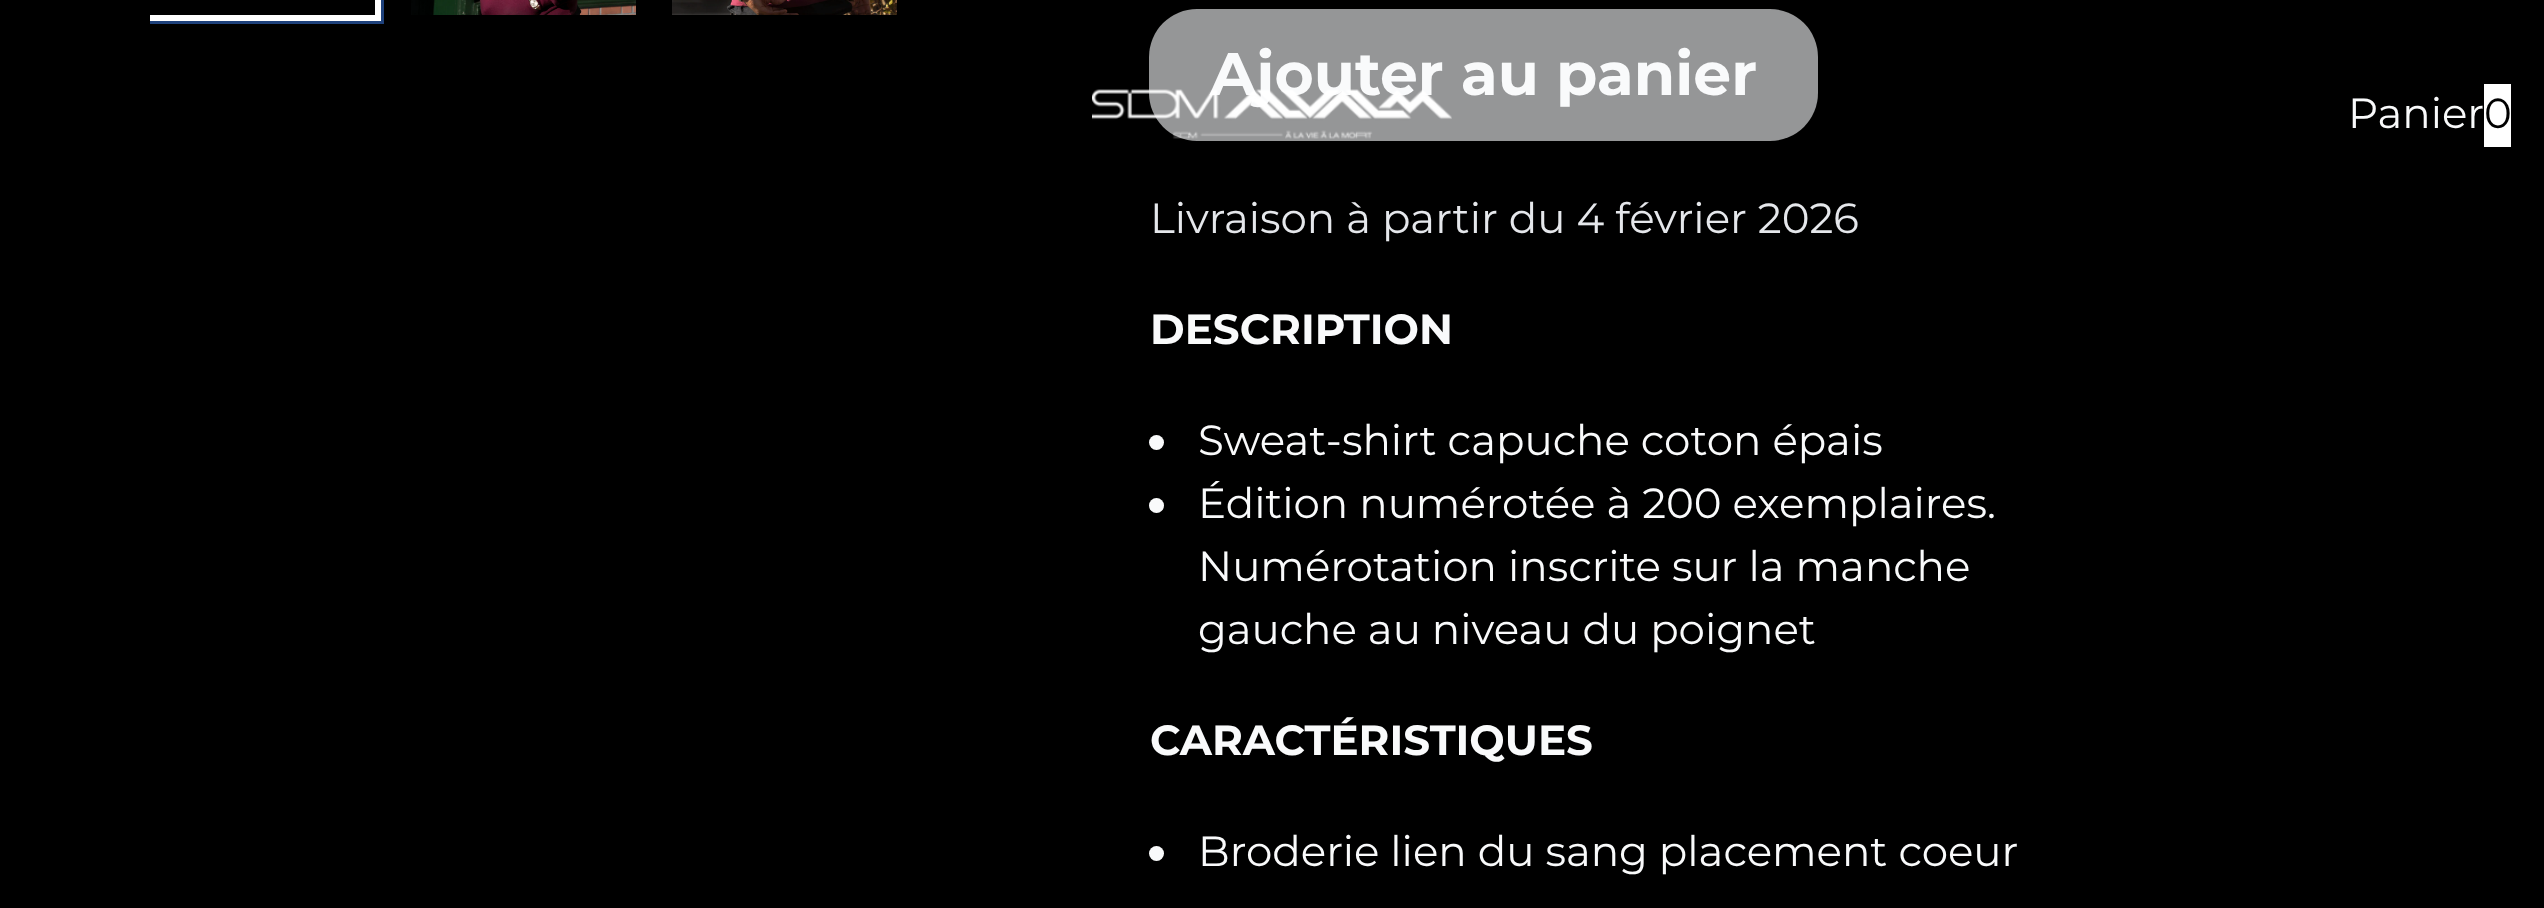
<?xml version="1.0" encoding="UTF-8"?>
<svg xmlns="http://www.w3.org/2000/svg" xmlns:xlink="http://www.w3.org/1999/xlink" width="2544" height="908">
  <defs>
    <clipPath id="clip1"><rect x="150" width="783" height="27" /></clipPath>
  </defs>
  <rect width="100%" height="100%" fill="#000000" />
  <g clip-path="url(#clip1)">
    <rect x="145.5" y="-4.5" width="234" height="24" fill="none" stroke="#1e417b" stroke-width="9" />
    <rect x="147" y="-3" width="231" height="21" fill="none" stroke="#ffffff" stroke-width="6" />
  </g>
  <image x="411" y="0" width="225" height="15" xlink:href="image1.png" />
  <image x="672" y="0" width="225" height="15" xlink:href="image2.png" />
  <rect x="1149" y="9" width="669" height="132" rx="48" fill="#959697" />
  <circle cx="1156.5" cy="442.5" r="7.5" fill="#f9fafb" />
  <circle cx="1156.5" cy="505.5" r="7.5" fill="#f9fafb" />
  <circle cx="1156.5" cy="853.5" r="7.5" fill="#f9fafb" />
  <rect x="2484" y="84" width="27" height="63" fill="#ffffff" />
  <text x="1210" y="95" style="font-family: Montserrat; font-size: 60px; font-weight: bold; fill: #f9fafb">Ajouter au panier</text>
  <text x="1150" y="233" style="font-family: Montserrat; font-size: 42px; fill: #e5e7eb">Livraison à partir du 4 février 2026</text>
  <text x="1150" y="344" style="font-family: Montserrat; font-size: 42px; font-weight: bold; fill: #f9fafb">DESCRIPTION</text>
  <text x="1198" y="455" style="font-family: Montserrat; font-size: 42px; fill: #f9fafb">Sweat-shirt capuche coton épais</text>
  <text x="1198" y="518" style="font-family: Montserrat; font-size: 42px; fill: #f9fafb">Édition numérotée à 200 exemplaires.</text>
  <text x="1198" y="581" style="font-family: Montserrat; font-size: 42px; fill: #f9fafb">Numérotation inscrite sur la manche</text>
  <text x="1198" y="644" style="font-family: Montserrat; font-size: 42px; fill: #f9fafb">gauche au niveau du poignet</text>
  <text x="1150" y="755" style="font-family: Montserrat; font-size: 42px; font-weight: bold; fill: #f9fafb">CARACTÉRISTIQUES</text>
  <text x="1198" y="866" style="font-family: Montserrat; font-size: 42px; fill: #f9fafb">Broderie lien du sang placement coeur</text>
  <image x="1092" y="89" width="360" height="50" xlink:href="image3.png" />
  <text x="2348" y="128" style="font-family: Montserrat; font-size: 42px; fill: #f9fafb">Panier</text>
  <text x="2484" y="128" style="font-family: Montserrat; font-size: 42px; fill: #000000">0</text>
</svg>
